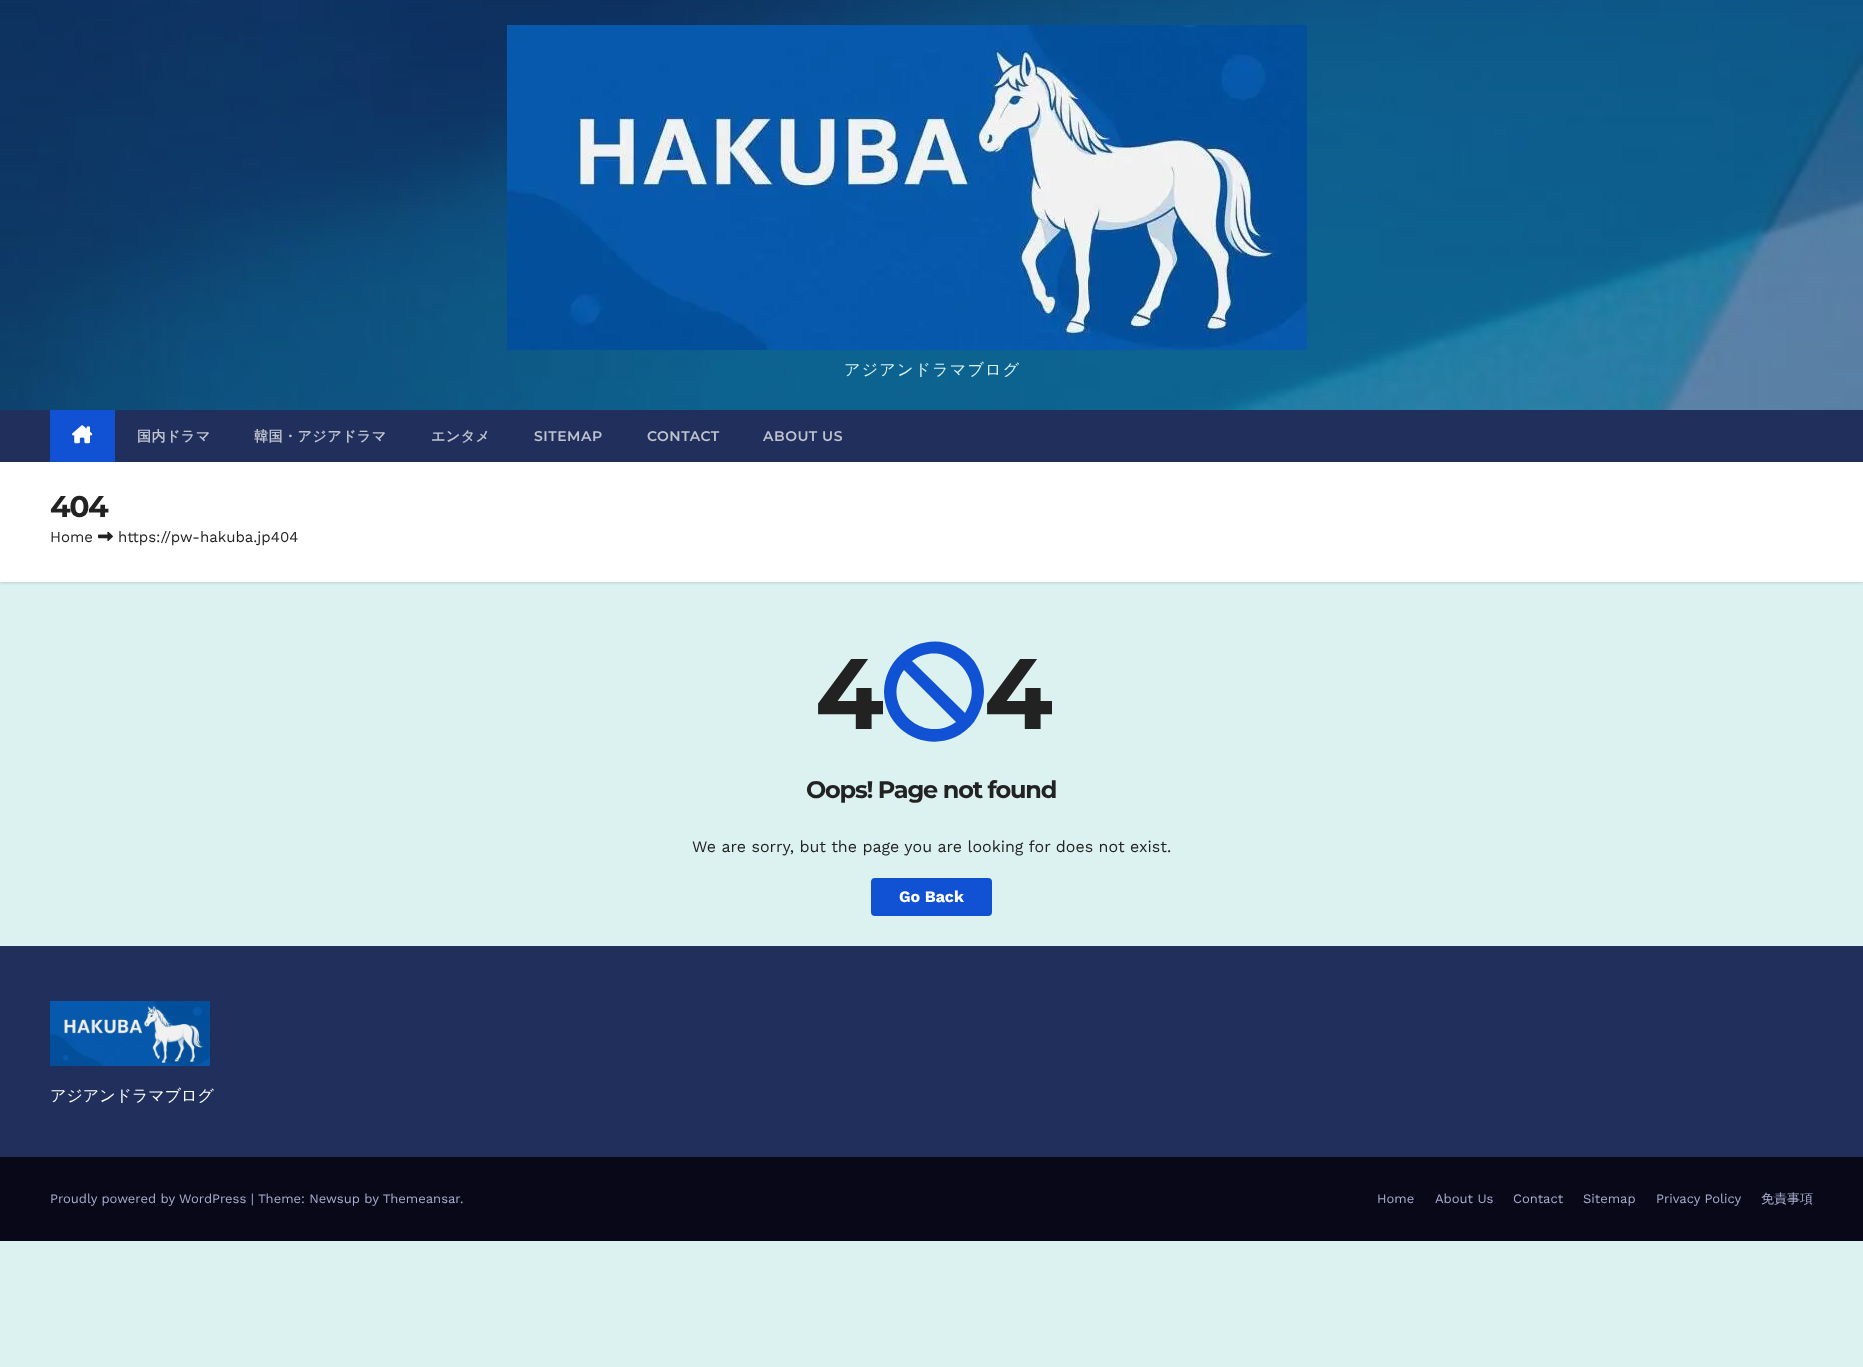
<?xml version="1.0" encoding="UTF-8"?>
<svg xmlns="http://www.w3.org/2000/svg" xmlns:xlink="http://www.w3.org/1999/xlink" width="1863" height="1367">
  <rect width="100%" height="100%" fill="#dcf2f1" />
  <image x="0" y="0" width="1863" height="410" xlink:href="image1.png" />
  <image x="507" y="25" width="800" height="325" xlink:href="image2.png" />
  <rect y="463" width="1863" height="120" fill="#000000" fill-opacity="0.15" filter="blur(1.5px)" />
  <rect y="410" width="1863" height="52" fill="#202f5b" />
  <rect x="50" y="410" width="65" height="52" fill="#1151d3" />
  <image x="72" y="425" width="21" height="19" xlink:href="image3.png" />
  <rect y="462" width="1863" height="120" fill="#ffffff" />
  <image x="98" y="531" width="15" height="10" xlink:href="image4.png" />
  <path d="M 956 722 l -52 -52 c -25 34 18 76 52 52 z m 9 -9 c 24 -34 -19 -77 -53 -52 z m -81 -21 c 1 -48 60 -69 90 -31 c 6 9 10 20 10 31 c 0 10 -4 21 -10 30 c -30 38 -89 17 -90 -30 z" fill="#1151d3" />
  <rect x="872" y="879" width="119" height="36" rx="3" fill="#1151d3" stroke="#1151d3" stroke-width="2" />
  <rect y="946" width="1863" height="211" fill="#202f5c" />
  <image x="50" y="1001" width="160" height="65" xlink:href="image5.png" />
  <rect y="1157" width="1863" height="84" fill="#090818" />
  <text x="844" y="375" style="font-family: WenQuanYi Zen Hei; font-size: 16px; font-weight: 500; letter-spacing: 1.25px; fill: #dcf2f1">アジアンドラマブログ</text>
  <text x="137" y="441" style="font-family: WenQuanYi Zen Hei; font-size: 14px; font-weight: bold; letter-spacing: 0.5px; fill: #bec3cf">国内ドラマ</text>
  <text x="254" y="441" style="font-family: WenQuanYi Zen Hei; font-size: 14px; font-weight: bold; letter-spacing: 0.5px; fill: #bec3cf">韓国・アジアドラマ</text>
  <text x="431" y="441" style="font-family: WenQuanYi Zen Hei; font-size: 14px; font-weight: bold; letter-spacing: 0.5px; fill: #bec3cf">エンタメ</text>
  <text x="534" y="441" style="font-family: Montserrat; font-size: 14px; font-weight: 600; letter-spacing: 0.5px; fill: #bec3cf">SITEMAP</text>
  <text x="647" y="441" style="font-family: Montserrat; font-size: 14px; font-weight: 600; letter-spacing: 0.5px; fill: #bec3cf">CONTACT</text>
  <text x="763" y="441" style="font-family: Montserrat; font-size: 14px; font-weight: 600; letter-spacing: 0.5px; fill: #bec3cf">ABOUT US</text>
  <text x="50" y="517" style="font-family: Montserrat; font-size: 30px; font-weight: bold; letter-spacing: -1.5px; fill: #222222">404</text>
  <text x="50" y="542" style="font-family: Work Sans; font-size: 15px; fill: #222222">Home</text>
  <text x="118" y="542" style="font-family: Work Sans; font-size: 15px; fill: #222222">https://pw-hakuba.jp404</text>
  <text x="815" y="729" style="font-family: Montserrat; font-size: 100px; font-weight: bold; letter-spacing: -5px; fill: #222222">4</text>
  <text x="984" y="729" style="font-family: Montserrat; font-size: 100px; font-weight: bold; letter-spacing: -5px; fill: #222222">4</text>
  <text x="806" y="798" style="font-family: Montserrat; font-size: 24px; font-weight: bold; letter-spacing: -1.2px; fill: #222222">Oops! Page not found</text>
  <text x="692" y="852" style="font-family: Work Sans; font-size: 16px; fill: #222222">We are sorry, but the page you are looking for does not exist.</text>
  <text x="899" y="902" style="font-family: Work Sans; font-size: 16px; font-weight: bold; fill: #ffffff">Go Back</text>
  <text x="50" y="1101" style="font-family: WenQuanYi Zen Hei; font-size: 16px; font-weight: 500; fill: #ffffff">アジアンドラマブログ</text>
  <text x="50" y="1203" style="font-family: Work Sans; font-size: 13px; fill: #aaaed1">Proudly powered by WordPress |</text>
  <text x="258" y="1203" style="font-family: Work Sans; font-size: 13px; fill: #aaaed1">Theme: Newsup by Themeansar</text>
  <text x="460" y="1203" style="font-family: Work Sans; font-size: 13px; fill: #aaaed1">.</text>
  <text x="1377" y="1203" style="font-family: Work Sans; font-size: 13px; fill: #aaaed1">Home</text>
  <text x="1435" y="1203" style="font-family: Work Sans; font-size: 13px; fill: #aaaed1">About Us</text>
  <text x="1513" y="1203" style="font-family: Work Sans; font-size: 13px; fill: #aaaed1">Contact</text>
  <text x="1583" y="1203" style="font-family: Work Sans; font-size: 13px; fill: #aaaed1">Sitemap</text>
  <text x="1656" y="1203" style="font-family: Work Sans; font-size: 13px; fill: #aaaed1">Privacy Policy</text>
  <text x="1761" y="1203" style="font-family: WenQuanYi Zen Hei; font-size: 13px; font-weight: 500; fill: #aaaed1">免責事項</text>
</svg>
